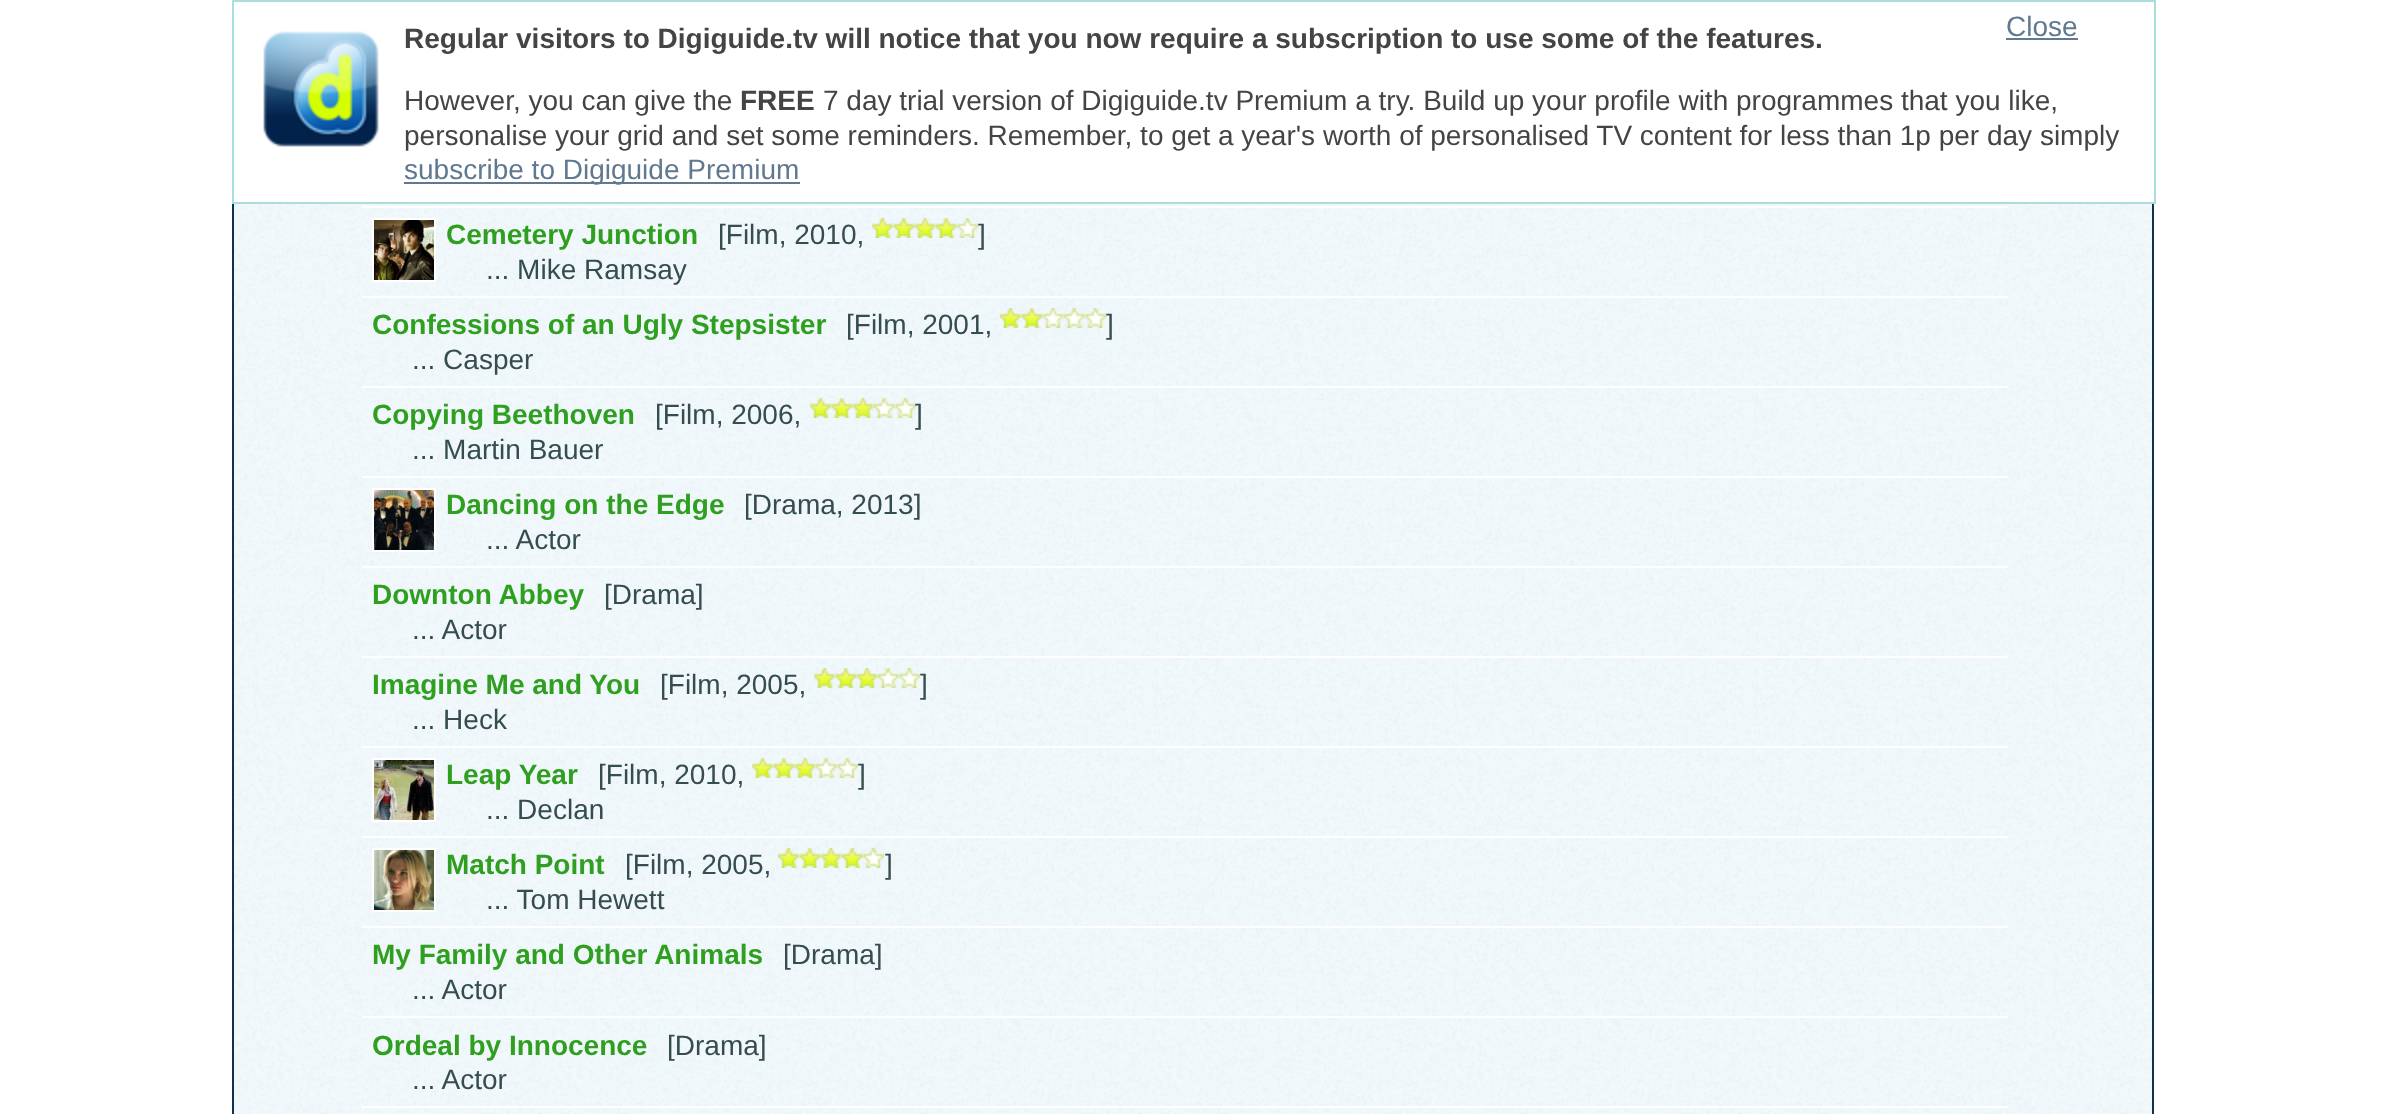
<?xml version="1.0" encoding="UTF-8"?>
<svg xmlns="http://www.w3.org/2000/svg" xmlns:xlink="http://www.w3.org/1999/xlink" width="2386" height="1114">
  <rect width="100%" height="100%" fill="#ffffff" />
  <image x="234" y="204" width="1918" height="910" xlink:href="image2.png" />
  <rect x="233" y="-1" width="1920" height="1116" fill="none" stroke="#10324e" stroke-width="2" />
  <rect x="2152" y="2" width="2" height="200" fill="#ffffff" />
  <rect x="233" y="1" width="1922" height="202" fill="none" stroke="#aadddd" stroke-width="2" />
  <image x="263" y="31" width="116" height="116" xlink:href="image1.png" />
  <rect x="2006" y="38" width="72" height="2" fill="#607890" />
  <rect x="404" y="182" width="396" height="2" fill="#607890" />
  <rect x="362" y="206" width="1646" height="2" fill="#ffffff" />
  <rect x="362" y="296" width="1646" height="2" fill="#ffffff" />
  <rect x="373" y="219" width="62" height="62" fill="none" stroke="#ffffff" stroke-width="2" />
  <image x="374" y="220" width="60" height="60" xlink:href="image3.png" />
  <image x="872" y="218" width="106" height="20" xlink:href="image4.png" />
  <rect x="362" y="386" width="1646" height="2" fill="#ffffff" />
  <image x="1000" y="308" width="106" height="20" xlink:href="image5.png" />
  <rect x="362" y="476" width="1646" height="2" fill="#ffffff" />
  <image x="810" y="398" width="106" height="20" xlink:href="image6.png" />
  <rect x="362" y="566" width="1646" height="2" fill="#ffffff" />
  <rect x="373" y="489" width="62" height="62" fill="none" stroke="#ffffff" stroke-width="2" />
  <image x="374" y="490" width="60" height="60" xlink:href="image7.png" />
  <rect x="362" y="656" width="1646" height="2" fill="#ffffff" />
  <rect x="362" y="746" width="1646" height="2" fill="#ffffff" />
  <image x="814" y="668" width="106" height="20" xlink:href="image8.png" />
  <rect x="362" y="836" width="1646" height="2" fill="#ffffff" />
  <rect x="373" y="759" width="62" height="62" fill="none" stroke="#ffffff" stroke-width="2" />
  <image x="374" y="760" width="60" height="60" xlink:href="image9.png" />
  <image x="752" y="758" width="106" height="20" xlink:href="image10.png" />
  <rect x="362" y="926" width="1646" height="2" fill="#ffffff" />
  <rect x="373" y="849" width="62" height="62" fill="none" stroke="#ffffff" stroke-width="2" />
  <image x="374" y="850" width="60" height="60" xlink:href="image11.png" />
  <image x="778" y="848" width="106" height="20" xlink:href="image12.png" />
  <rect x="362" y="1016" width="1646" height="2" fill="#ffffff" />
  <rect x="362" y="1106" width="1646" height="2" fill="#ffffff" />
  <text x="404" y="48" style="font-family: Liberation Sans; font-size: 28px; font-weight: bold; fill: #444444">Regular visitors to Digiguide.tv will notice that you now require a subscription to use some of the features.</text>
  <text x="2006" y="36" style="font-family: Liberation Sans; font-size: 28px; fill: #607890">Close</text>
  <text x="404" y="110" style="font-family: Liberation Sans; font-size: 28px; fill: #444444">However, you can give the</text>
  <text x="740" y="110" style="font-family: Liberation Sans; font-size: 28px; font-weight: bold; fill: #444444">FREE</text>
  <text x="823" y="110" style="font-family: Liberation Sans; font-size: 28px; fill: #444444">7 day trial version of Digiguide.tv Premium a try. Build up your profile with programmes that you like,</text>
  <text x="404" y="145" style="font-family: Liberation Sans; font-size: 28px; fill: #444444">personalise your grid and set some reminders. Remember, to get a year's worth of personalised TV content for less than 1p per day simply</text>
  <text x="404" y="179" style="font-family: Liberation Sans; font-size: 28px; fill: #607890">subscribe to Digiguide Premium</text>
  <text x="446" y="244" style="font-family: Liberation Sans; font-size: 28px; font-weight: bold; fill: #2f9f20">Cemetery Junction</text>
  <text x="718" y="244" style="font-family: Liberation Sans; font-size: 28px; fill: #354d4d">[Film, 2010,</text>
  <text x="978" y="244" style="font-family: Liberation Sans; font-size: 28px; fill: #354d4d">]</text>
  <text x="486" y="279" style="font-family: Liberation Sans; font-size: 28px; fill: #354d4d">... Mike Ramsay</text>
  <text x="372" y="334" style="font-family: Liberation Sans; font-size: 28px; font-weight: bold; fill: #2f9f20">Confessions of an Ugly Stepsister</text>
  <text x="846" y="334" style="font-family: Liberation Sans; font-size: 28px; fill: #354d4d">[Film, 2001,</text>
  <text x="1106" y="334" style="font-family: Liberation Sans; font-size: 28px; fill: #354d4d">]</text>
  <text x="412" y="369" style="font-family: Liberation Sans; font-size: 28px; fill: #354d4d">... Casper</text>
  <text x="372" y="424" style="font-family: Liberation Sans; font-size: 28px; font-weight: bold; fill: #2f9f20">Copying Beethoven</text>
  <text x="655" y="424" style="font-family: Liberation Sans; font-size: 28px; fill: #354d4d">[Film, 2006,</text>
  <text x="915" y="424" style="font-family: Liberation Sans; font-size: 28px; fill: #354d4d">]</text>
  <text x="412" y="459" style="font-family: Liberation Sans; font-size: 28px; fill: #354d4d">... Martin Bauer</text>
  <text x="446" y="514" style="font-family: Liberation Sans; font-size: 28px; font-weight: bold; fill: #2f9f20">Dancing on the Edge</text>
  <text x="744" y="514" style="font-family: Liberation Sans; font-size: 28px; fill: #354d4d">[Drama, 2013]</text>
  <text x="486" y="549" style="font-family: Liberation Sans; font-size: 28px; fill: #354d4d">... Actor</text>
  <text x="372" y="604" style="font-family: Liberation Sans; font-size: 28px; font-weight: bold; fill: #2f9f20">Downton Abbey</text>
  <text x="604" y="604" style="font-family: Liberation Sans; font-size: 28px; fill: #354d4d">[Drama]</text>
  <text x="412" y="639" style="font-family: Liberation Sans; font-size: 28px; fill: #354d4d">... Actor</text>
  <text x="372" y="694" style="font-family: Liberation Sans; font-size: 28px; font-weight: bold; fill: #2f9f20">Imagine Me and You</text>
  <text x="660" y="694" style="font-family: Liberation Sans; font-size: 28px; fill: #354d4d">[Film, 2005,</text>
  <text x="920" y="694" style="font-family: Liberation Sans; font-size: 28px; fill: #354d4d">]</text>
  <text x="412" y="729" style="font-family: Liberation Sans; font-size: 28px; fill: #354d4d">... Heck</text>
  <text x="446" y="784" style="font-family: Liberation Sans; font-size: 28px; font-weight: bold; fill: #2f9f20">Leap Year</text>
  <text x="598" y="784" style="font-family: Liberation Sans; font-size: 28px; fill: #354d4d">[Film, 2010,</text>
  <text x="858" y="784" style="font-family: Liberation Sans; font-size: 28px; fill: #354d4d">]</text>
  <text x="486" y="819" style="font-family: Liberation Sans; font-size: 28px; fill: #354d4d">... Declan</text>
  <text x="446" y="874" style="font-family: Liberation Sans; font-size: 28px; font-weight: bold; fill: #2f9f20">Match Point</text>
  <text x="625" y="874" style="font-family: Liberation Sans; font-size: 28px; fill: #354d4d">[Film, 2005,</text>
  <text x="885" y="874" style="font-family: Liberation Sans; font-size: 28px; fill: #354d4d">]</text>
  <text x="486" y="909" style="font-family: Liberation Sans; font-size: 28px; fill: #354d4d">... Tom Hewett</text>
  <text x="372" y="964" style="font-family: Liberation Sans; font-size: 28px; font-weight: bold; fill: #2f9f20">My Family and Other Animals</text>
  <text x="783" y="964" style="font-family: Liberation Sans; font-size: 28px; fill: #354d4d">[Drama]</text>
  <text x="412" y="999" style="font-family: Liberation Sans; font-size: 28px; fill: #354d4d">... Actor</text>
  <text x="372" y="1055" style="font-family: Liberation Sans; font-size: 28px; font-weight: bold; fill: #2f9f20">Ordeal by Innocence</text>
  <text x="667" y="1055" style="font-family: Liberation Sans; font-size: 28px; fill: #354d4d">[Drama]</text>
  <text x="412" y="1089" style="font-family: Liberation Sans; font-size: 28px; fill: #354d4d">... Actor</text>
</svg>
